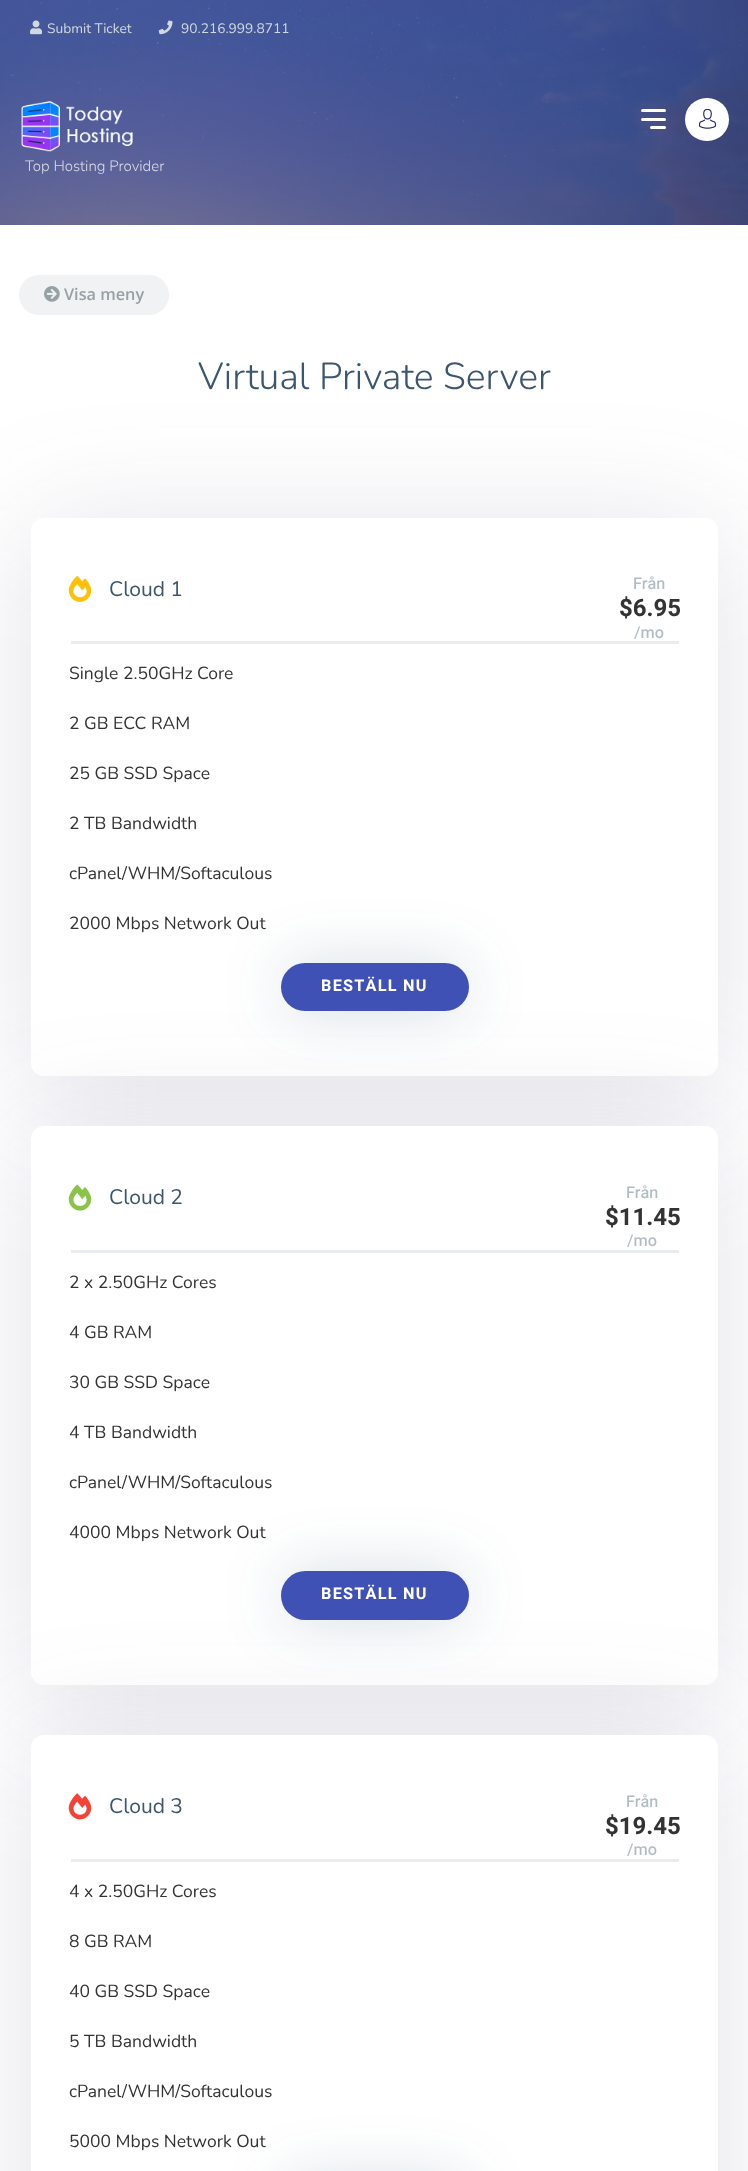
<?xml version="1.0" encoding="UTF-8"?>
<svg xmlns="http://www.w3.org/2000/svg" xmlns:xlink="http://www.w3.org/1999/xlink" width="748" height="2171">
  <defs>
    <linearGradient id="g1" gradientUnits="userSpaceOnUse" x1="312" y1="-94" x2="436" y2="319"><stop offset="0" stop-color="#48486b" stop-opacity="0.5" /><stop offset="1" stop-color="#131327" stop-opacity="0.5" /></linearGradient>
  </defs>
  <rect width="100%" height="100%" fill="#ffffff" />
  <image x="215" y="2" width="437" height="214" xlink:href="image2.png" />
  <image x="0" y="0" width="748" height="225" xlink:href="image1.png" />
  <rect width="748" height="225" fill="url(#g1)" />
  <image x="30" y="20" width="13" height="15" xlink:href="image3.png" />
  <image x="158" y="20" width="15" height="15" xlink:href="image4.png" />
  <rect x="641" y="109" width="25" height="3" rx="1.5" fill="#ffffff" />
  <rect x="641" y="118" width="25" height="3" rx="1.5" fill="#ffffff" />
  <rect x="650" y="126" width="16" height="3" rx="1.5" fill="#ffffff" />
  <rect x="685" y="98" width="44" height="43" rx="21.5" fill="#ffffff" />
  <image x="699" y="109" width="17" height="20" xlink:href="image5.png" />
  <image x="21" y="101" width="112" height="51" xlink:href="image6.png" />
  <rect x="19" y="275" width="150" height="40" rx="20" fill="#f0f2f3" />
  <image x="44" y="286" width="16" height="16" xlink:href="image7.png" />
  <rect x="31" y="530" width="687" height="559" rx="13" fill="#4d4d77" fill-opacity="0.16" filter="blur(62.5px)" />
  <rect x="31" y="518" width="687" height="558" rx="13" fill="#ffffff" />
  <rect x="71" y="641" width="608" height="3" fill="#eaedef" />
  <image x="68" y="575" width="24" height="27" xlink:href="image8.png" />
  <rect x="281" y="963" width="188" height="48" rx="24" fill="#0e445d" fill-opacity="0.18" filter="blur(31px)" />
  <rect x="281" y="963" width="188" height="48" rx="24" fill="#3f51b5" />
  <rect x="31" y="1139" width="687" height="559" rx="13" fill="#4d4d77" fill-opacity="0.16" filter="blur(62.5px)" />
  <rect x="31" y="1126" width="687" height="559" rx="13" fill="#ffffff" />
  <rect x="71" y="1250" width="608" height="3" fill="#eaedef" />
  <image x="68" y="1184" width="24" height="27" xlink:href="image9.png" />
  <rect x="281" y="1571" width="188" height="49" rx="24.5" fill="#0e445d" fill-opacity="0.18" filter="blur(31px)" />
  <rect x="281" y="1571" width="188" height="49" rx="24.5" fill="#3f51b5" />
  <rect x="31" y="1748" width="687" height="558" rx="13" fill="#4d4d77" fill-opacity="0.16" filter="blur(62.5px)" />
  <rect x="31" y="1735" width="687" height="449" rx="13" fill="#ffffff" />
  <rect x="71" y="1859" width="608" height="3" fill="#eaedef" />
  <image x="68" y="1793" width="24" height="27" xlink:href="image10.png" />
  <rect x="281" y="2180" width="188" height="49" rx="24.5" fill="#0e445d" fill-opacity="0.18" filter="blur(31px)" />
  <text x="47" y="33" style="font-family: Nunito; font-size: 13.75px; fill: #d0d9de">Submit Ticket</text>
  <text x="181" y="33" style="font-family: Nunito; font-size: 13.75px; fill: #d0d9de">90.216.999.8711</text>
  <text x="25" y="171" style="font-family: Nunito; font-size: 15px; font-weight: 300; fill: #dadbe7">Top Hosting Provider</text>
  <text x="64" y="300" style="font-family: Open Sans; font-size: 16.25px; font-weight: 600; fill: #97a1a5">Visa meny</text>
  <text x="198" y="389" style="font-family: Nunito; font-size: 37.5px; font-weight: 300; fill: #3b566e">Virtual Private Server</text>
  <text x="109" y="596" style="font-family: Nunito; font-size: 21px; fill: #3b566e">Cloud 1</text>
  <text x="633" y="589" style="font-family: Heebo; font-size: 16.25px; font-weight: 500; fill: #b1bcc1">Från</text>
  <text x="619" y="616" style="font-family: Heebo; font-size: 24px; font-weight: bold; fill: #333333">$6.95</text>
  <text x="634" y="638" style="font-family: Heebo; font-size: 16.25px; font-weight: 500; fill: #b1bcc1">/mo</text>
  <text x="69" y="679" style="font-family: Nunito; font-size: 17.5px; fill: #333333">Single 2.50GHz Core</text>
  <text x="69" y="729" style="font-family: Nunito; font-size: 17.5px; fill: #333333">2 GB ECC RAM</text>
  <text x="69" y="779" style="font-family: Nunito; font-size: 17.5px; fill: #333333">25 GB SSD Space</text>
  <text x="69" y="829" style="font-family: Nunito; font-size: 17.5px; fill: #333333">2 TB Bandwidth</text>
  <text x="69" y="879" style="font-family: Nunito; font-size: 17.5px; fill: #333333">cPanel/WHM/Softaculous</text>
  <text x="69" y="929" style="font-family: Nunito; font-size: 17.5px; fill: #333333">2000 Mbps Network Out</text>
  <text x="321" y="991" style="font-family: Heebo; font-size: 16.25px; font-weight: bold; letter-spacing: 1.25px; fill: #ffffff">BESTÄLL NU</text>
  <text x="109" y="1204" style="font-family: Nunito; font-size: 21px; fill: #3b566e">Cloud 2</text>
  <text x="626" y="1198" style="font-family: Heebo; font-size: 16.25px; font-weight: 500; fill: #b1bcc1">Från</text>
  <text x="605" y="1225" style="font-family: Heebo; font-size: 24px; font-weight: bold; fill: #333333">$11.45</text>
  <text x="627" y="1246" style="font-family: Heebo; font-size: 16.25px; font-weight: 500; fill: #b1bcc1">/mo</text>
  <text x="69" y="1288" style="font-family: Nunito; font-size: 17.5px; fill: #333333">2 x 2.50GHz Cores</text>
  <text x="69" y="1338" style="font-family: Nunito; font-size: 17.5px; fill: #333333">4 GB RAM</text>
  <text x="69" y="1388" style="font-family: Nunito; font-size: 17.5px; fill: #333333">30 GB SSD Space</text>
  <text x="69" y="1438" style="font-family: Nunito; font-size: 17.5px; fill: #333333">4 TB Bandwidth</text>
  <text x="69" y="1488" style="font-family: Nunito; font-size: 17.5px; fill: #333333">cPanel/WHM/Softaculous</text>
  <text x="69" y="1538" style="font-family: Nunito; font-size: 17.5px; fill: #333333">4000 Mbps Network Out</text>
  <text x="321" y="1599" style="font-family: Heebo; font-size: 16.25px; font-weight: bold; letter-spacing: 1.25px; fill: #ffffff">BESTÄLL NU</text>
  <text x="109" y="1813" style="font-family: Nunito; font-size: 21px; fill: #3b566e">Cloud 3</text>
  <text x="626" y="1807" style="font-family: Heebo; font-size: 16.25px; font-weight: 500; fill: #b1bcc1">Från</text>
  <text x="605" y="1834" style="font-family: Heebo; font-size: 24px; font-weight: bold; fill: #333333">$19.45</text>
  <text x="627" y="1855" style="font-family: Heebo; font-size: 16.25px; font-weight: 500; fill: #b1bcc1">/mo</text>
  <text x="69" y="1897" style="font-family: Nunito; font-size: 17.5px; fill: #333333">4 x 2.50GHz Cores</text>
  <text x="69" y="1947" style="font-family: Nunito; font-size: 17.5px; fill: #333333">8 GB RAM</text>
  <text x="69" y="1997" style="font-family: Nunito; font-size: 17.5px; fill: #333333">40 GB SSD Space</text>
  <text x="69" y="2047" style="font-family: Nunito; font-size: 17.5px; fill: #333333">5 TB Bandwidth</text>
  <text x="69" y="2097" style="font-family: Nunito; font-size: 17.5px; fill: #333333">cPanel/WHM/Softaculous</text>
  <text x="69" y="2147" style="font-family: Nunito; font-size: 17.5px; fill: #333333">5000 Mbps Network Out</text>
</svg>
